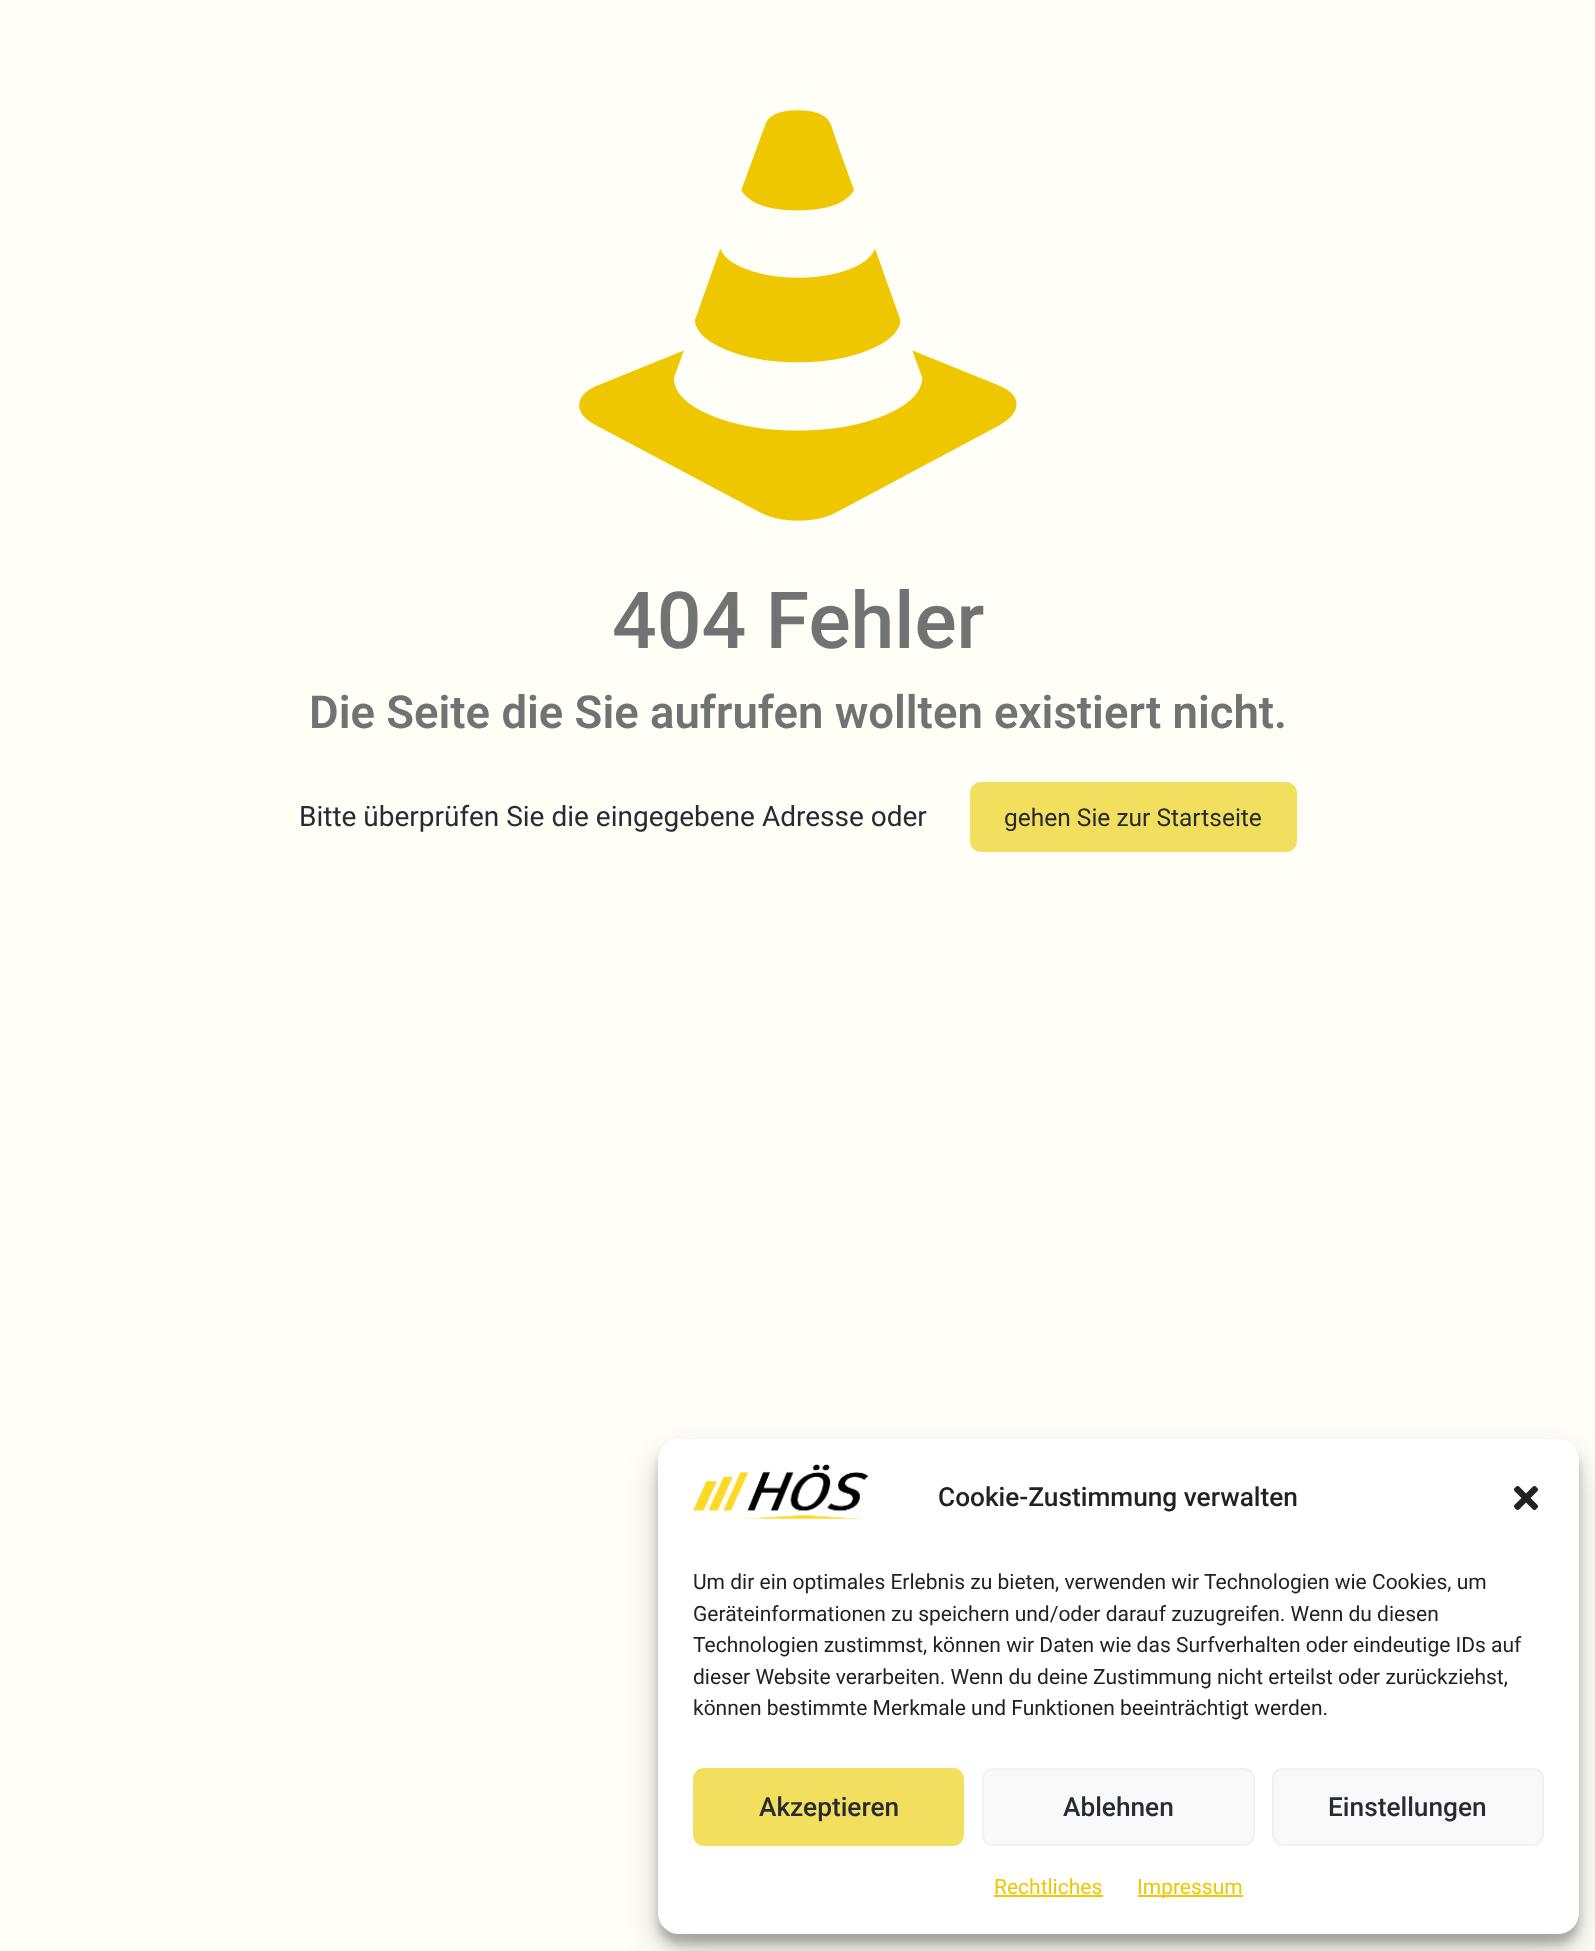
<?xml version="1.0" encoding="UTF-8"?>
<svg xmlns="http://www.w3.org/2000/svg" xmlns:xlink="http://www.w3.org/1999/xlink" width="1595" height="1951">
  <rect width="100%" height="100%" fill="#fffef7" />
  <image x="579" y="110" width="438" height="411" xlink:href="image1.png" />
  <rect x="970" y="782" width="327" height="70" rx="11" fill="#f3df5e" />
  <rect x="658" y="1449" width="921" height="495" rx="21" fill="#000000" fill-opacity="0.23" filter="blur(5px)" />
  <rect x="658" y="1456" width="921" height="495" rx="21" fill="#000000" fill-opacity="0.19" filter="blur(17.5px)" />
  <rect x="658" y="1439" width="921" height="495" rx="21" fill="#ffffff" />
  <image x="693" y="1464" width="175" height="55" xlink:href="image2.png" />
  <image x="1514" y="1486" width="24" height="24" xlink:href="image3.png" />
  <rect x="694" y="1769" width="269" height="76" rx="10" fill="#f3df5e" stroke="#f3df5e" stroke-width="2" />
  <rect x="983" y="1769" width="271" height="76" rx="10" fill="#f9f9f9" stroke="#f2f2f2" stroke-width="2" />
  <rect x="1273" y="1769" width="270" height="76" rx="10" fill="#f9f9f9" stroke="#f2f2f2" stroke-width="2" />
  <rect x="994" y="1895" width="109" height="2" fill="#efc700" />
  <rect x="1138" y="1895" width="105" height="2" fill="#efc700" />
  <text x="612" y="648" style="font-family: Roboto; font-size: 78.75px; font-weight: 500; fill: #707372">404 Fehler</text>
  <text x="309" y="728" style="font-family: Roboto; font-size: 45.5px; font-weight: 600; fill: #707372">Die Seite die Sie aufrufen wollten existiert nicht.</text>
  <text x="299" y="826" style="font-family: Roboto; font-size: 28px; fill: #282b34">Bitte überprüfen Sie die eingegebene Adresse oder</text>
  <text x="1004" y="826" style="font-family: Roboto; font-size: 24.5px; fill: #282b34">gehen Sie zur Startseite</text>
  <text x="938" y="1506" style="font-family: Roboto; font-size: 26.25px; font-weight: 500; fill: #222222">Cookie-Zustimmung verwalten</text>
  <text x="693" y="1589" style="font-family: Roboto; font-size: 21px; fill: #222222">Um dir ein optimales Erlebnis zu bieten, verwenden wir Technologien wie Cookies, um</text>
  <text x="693" y="1621" style="font-family: Roboto; font-size: 21px; fill: #222222">Geräteinformationen zu speichern und/oder darauf zuzugreifen. Wenn du diesen</text>
  <text x="693" y="1652" style="font-family: Roboto; font-size: 21px; fill: #222222">Technologien zustimmst, können wir Daten wie das Surfverhalten oder eindeutige IDs auf</text>
  <text x="693" y="1684" style="font-family: Roboto; font-size: 21px; fill: #222222">dieser Website verarbeiten. Wenn du deine Zustimmung nicht erteilst oder zurückziehst,</text>
  <text x="693" y="1715" style="font-family: Roboto; font-size: 21px; fill: #222222">können bestimmte Merkmale und Funktionen beeinträchtigt werden.</text>
  <text x="759" y="1816" style="font-family: Roboto; font-size: 26.25px; font-weight: 500; fill: #282b34">Akzeptieren</text>
  <text x="1063" y="1816" style="font-family: Roboto; font-size: 26.25px; font-weight: 500; fill: #282b34">Ablehnen</text>
  <text x="1328" y="1816" style="font-family: Roboto; font-size: 26.25px; font-weight: 500; fill: #282b34">Einstellungen</text>
  <text x="994" y="1894" style="font-family: Roboto; font-size: 21px; fill: #efc700">Rechtliches</text>
  <text x="1137" y="1894" style="font-family: Roboto; font-size: 21px; fill: #efc700">Impressum</text>
</svg>
